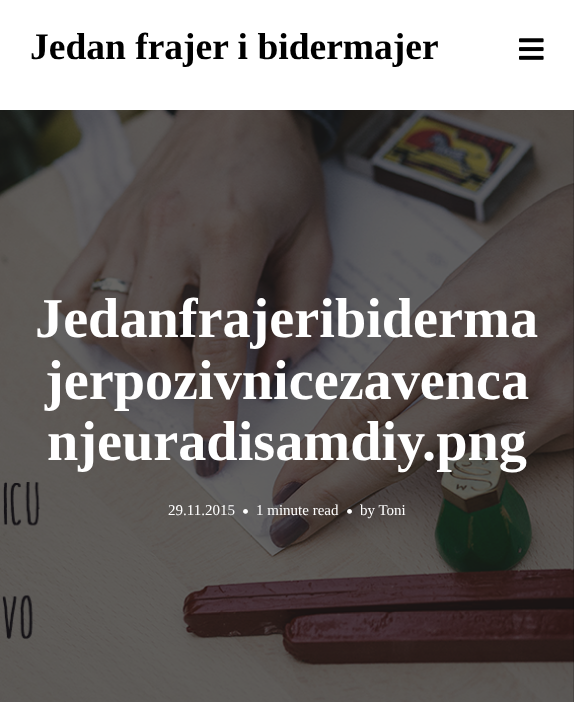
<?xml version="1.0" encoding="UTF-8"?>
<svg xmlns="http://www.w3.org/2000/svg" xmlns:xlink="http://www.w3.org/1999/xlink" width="574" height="702">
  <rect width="100%" height="100%" fill="#ffffff" />
  <image x="519" y="38" width="25" height="22" xlink:href="image1.png" />
  <rect y="110" width="574" height="592" fill="#000000" />
  <image x="0" y="110" width="574" height="592" xlink:href="image2.png" />
  <text x="30" y="59" style="font-family: Liberation Serif; font-size: 37.5px; font-weight: bold; fill: #000000">Jedan frajer i bidermajer</text>
  <text x="35" y="337" style="font-family: Liberation Serif; font-size: 56.25px; font-weight: bold; fill: #ffffff">Jedanfrajeribiderma</text>
  <text x="45" y="399" style="font-family: Liberation Serif; font-size: 56.25px; font-weight: bold; fill: #ffffff">jerpozivnicezavenca</text>
  <text x="47" y="460" style="font-family: Liberation Serif; font-size: 56.25px; font-weight: bold; fill: #ffffff">njeuradisamdiy.png</text>
  <text x="168" y="515" style="font-family: Liberation Serif; font-size: 15px; fill: #ffffff">29.11.2015</text>
  <text x="242" y="518" style="font-family: Liberation Serif; font-size: 20px; fill: #ffffff">•</text>
  <text x="256" y="515" style="font-family: Liberation Serif; font-size: 15px; fill: #ffffff">1 minute read</text>
  <text x="346" y="518" style="font-family: Liberation Serif; font-size: 20px; fill: #ffffff">•</text>
  <text x="360" y="515" style="font-family: Liberation Serif; font-size: 15px; fill: #ffffff">by Toni</text>
</svg>
